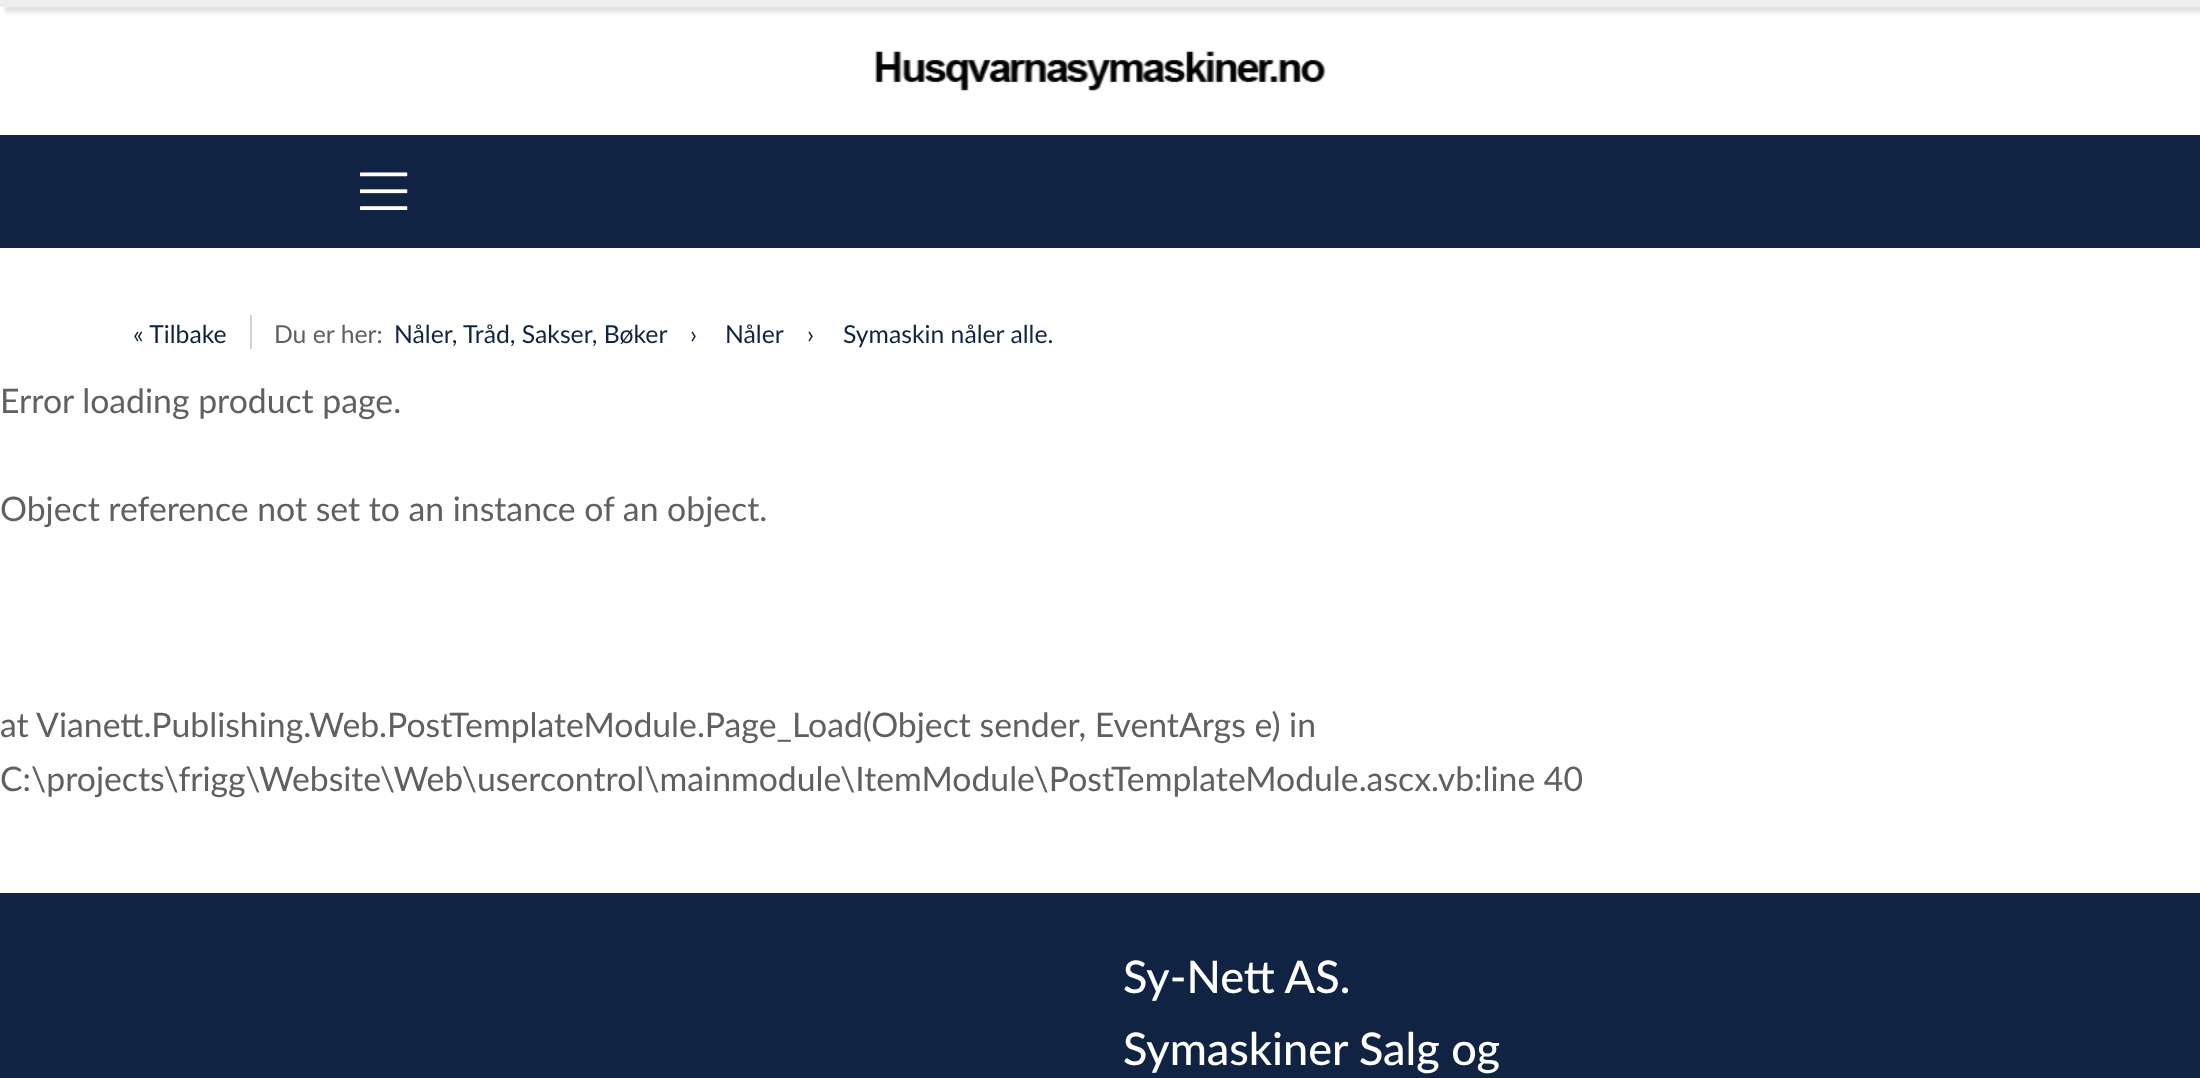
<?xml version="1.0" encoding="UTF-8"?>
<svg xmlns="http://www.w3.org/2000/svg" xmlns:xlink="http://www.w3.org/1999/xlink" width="2200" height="1078">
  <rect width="100%" height="100%" fill="#ffffff" />
  <rect x="5" y="5" width="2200" height="7" fill="#dddddd" filter="blur(2px)" />
  <rect width="2200" height="7" fill="#eeeeee" />
  <image x="875" y="50" width="451" height="41" xlink:href="image1.png" />
  <rect y="135" width="2200" height="113" fill="#102342" />
  <image x="360" y="172" width="48" height="38" xlink:href="image2.png" />
  <rect x="250" y="315" width="2" height="34" fill="#d3d3d3" />
  <rect y="893" width="2200" height="185" fill="#102342" />
  <text x="133" y="343" style="font-family: Lato; font-size: 24.75px; fill: #102342">« Tilbake</text>
  <text x="274" y="343" style="font-family: Lato; font-size: 24.75px; fill: #606060">Du er her:</text>
  <text x="394" y="343" style="font-family: Lato; font-size: 24.75px; fill: #102342">Nåler, Tråd, Sakser, Bøker</text>
  <text x="690" y="343" style="font-family: Lato; font-size: 24.75px; fill: #102342">›</text>
  <text x="725" y="343" style="font-family: Lato; font-size: 24.75px; fill: #102342">Nåler</text>
  <text x="807" y="343" style="font-family: Lato; font-size: 24.75px; fill: #102342">›</text>
  <text x="843" y="343" style="font-family: Lato; font-size: 24.75px; fill: #102342">Symaskin nåler alle.</text>
  <text x="0" y="413" style="font-family: Lato; font-size: 33.75px; fill: #606060">Error loading product page.</text>
  <text x="0" y="521" style="font-family: Lato; font-size: 33.75px; fill: #606060">Object reference not set to an instance of an object.</text>
  <text x="0" y="737" style="font-family: Lato; font-size: 33.75px; fill: #606060">at Vianett.Publishing.Web.PostTemplateModule.Page_Load(Object sender, EventArgs e) in</text>
  <text x="0" y="791" style="font-family: Lato; font-size: 33.75px; fill: #606060">C:\projects\frigg\Website\Web\usercontrol\mainmodule\ItemModule\PostTemplateModule.ascx.vb:line 40</text>
  <text x="1123" y="993" style="font-family: Lato; font-size: 45px; font-weight: 500; fill: #ffffff">Sy-Nett AS.</text>
  <text x="1123" y="1065" style="font-family: Lato; font-size: 45px; font-weight: 500; fill: #ffffff">Symaskiner Salg og</text>
</svg>
